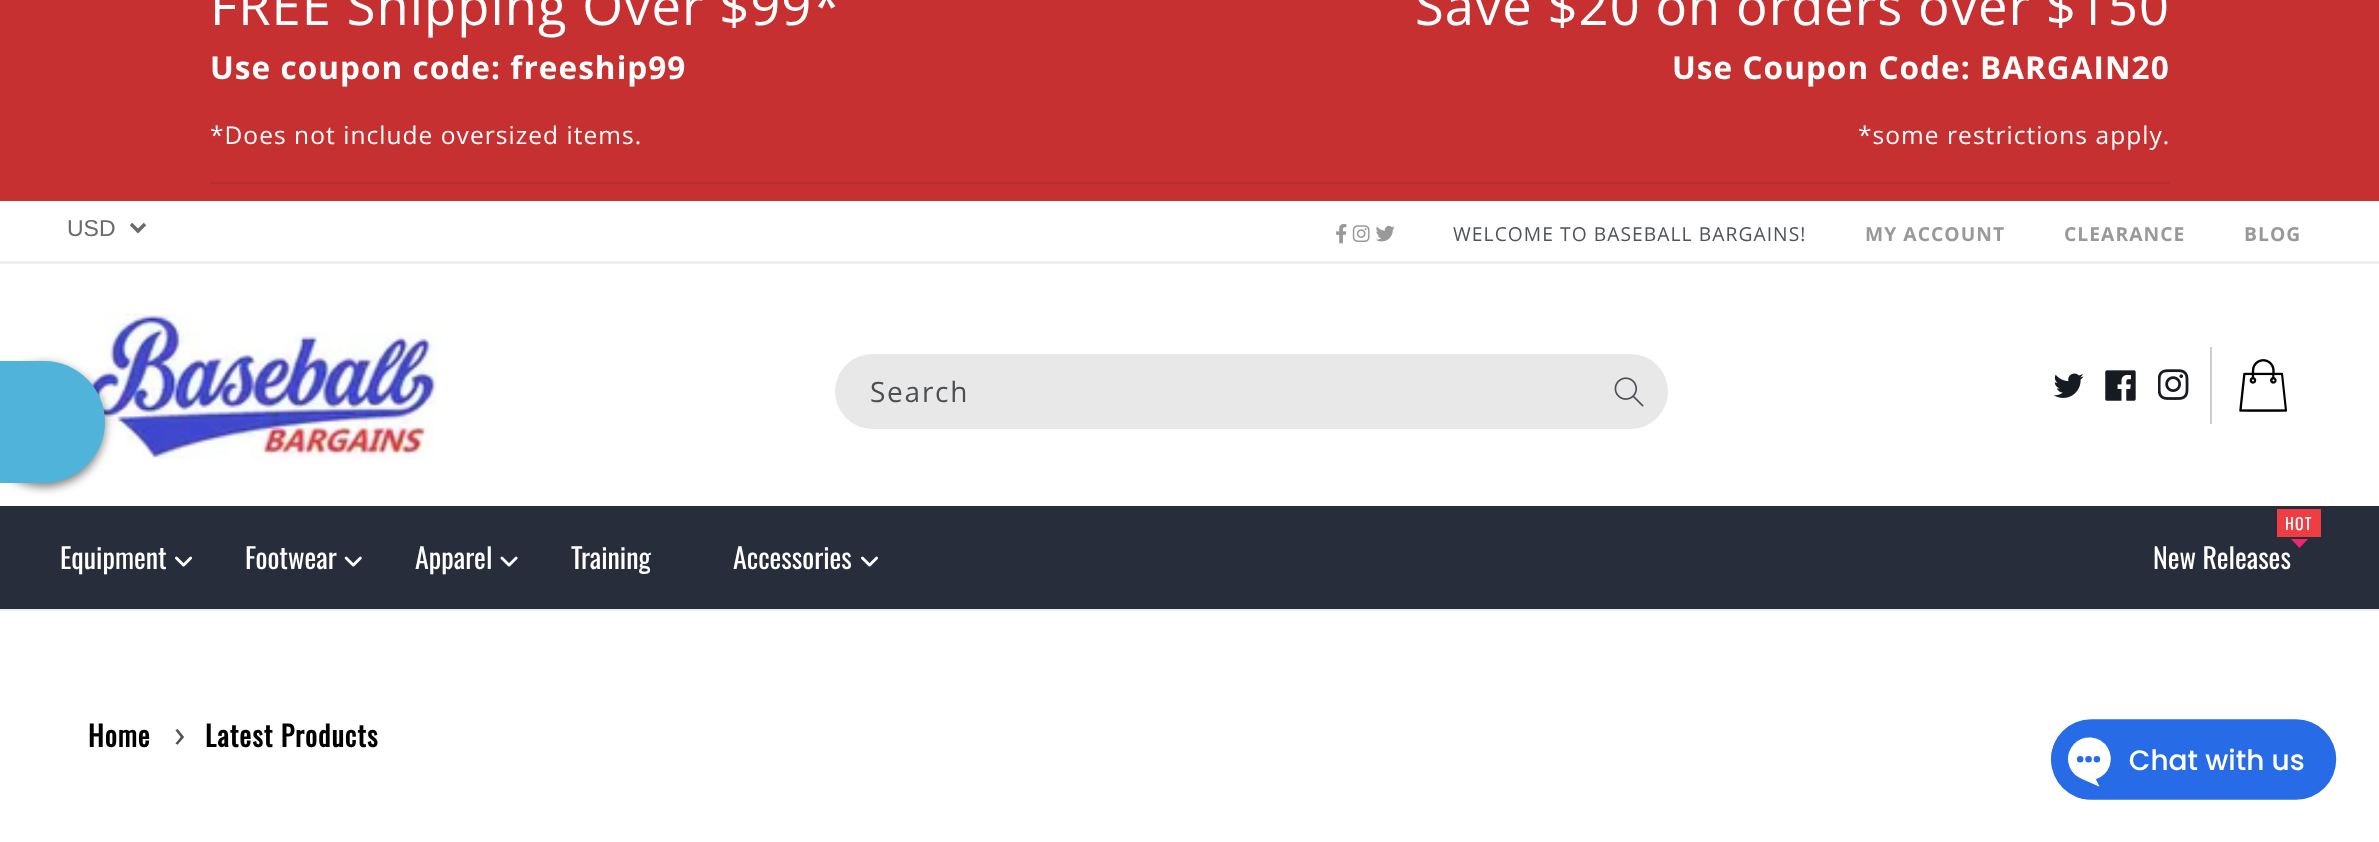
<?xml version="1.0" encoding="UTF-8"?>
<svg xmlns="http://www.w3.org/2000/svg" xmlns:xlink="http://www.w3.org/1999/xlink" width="2379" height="842">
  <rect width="100%" height="100%" fill="#ffffff" />
  <rect width="2379" height="201" fill="#c73030" />
  <rect x="210" y="182" width="1960" height="2" fill="#b92e2f" />
  <rect y="261" width="2379" height="3" fill="#efefef" />
  <path d="M 131 224 l 7 7 l 7 -7" fill="none" stroke="#6b6969" stroke-width="3.5" />
  <image x="1336" y="224" width="11" height="20" xlink:href="image1.png" />
  <image x="1352" y="225" width="18" height="17" xlink:href="image2.png" />
  <image x="1375" y="225" width="20" height="17" xlink:href="image3.png" />
  <image x="87" y="313" width="351" height="146" xlink:href="image4.png" />
  <rect x="-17" y="364" width="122" height="123" rx="61" fill="#000000" fill-opacity="0.5" filter="blur(5px)" />
  <path d="M -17 361 h 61 c 33.5 0 61 27.5 61 61 c 0 33.5 -27.5 61 -61 61 h -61 z" fill="#50b3da" />
  <rect y="609" width="2379" height="2" fill="#eceded" />
  <rect x="835" y="354" width="833" height="75" rx="37.5" fill="#e8e8e8" />
  <image x="1614" y="377" width="30" height="30" xlink:href="image5.png" />
  <image x="2053" y="373" width="31" height="25" xlink:href="image6.png" />
  <image x="2105" y="370" width="31" height="31" xlink:href="image7.png" />
  <image x="2158" y="369" width="31" height="31" xlink:href="image8.png" />
  <rect x="2210" y="347" width="2" height="77" fill="#cdcdcd" />
  <image x="2239" y="359" width="48" height="53" xlink:href="image9.png" />
  <rect y="506" width="2379" height="103" fill="#282d3b" />
  <image x="175" y="556" width="17" height="11" xlink:href="image10.png" />
  <image x="344" y="556" width="18" height="11" xlink:href="image11.png" />
  <image x="500" y="556" width="18" height="11" xlink:href="image12.png" />
  <image x="861" y="556" width="17" height="11" xlink:href="image10.png" />
  <rect x="2277" y="509" width="44" height="28" fill="#ee3d43" />
  <path d="M 2291 539 h 17 l -8.5 9 z" fill="#eb2771" />
  <image x="2050" y="719" width="287" height="81" xlink:href="image13.png" />
  <text x="210" y="25" style="font-family: Open Sans; font-size: 52.5px; letter-spacing: 1.05px; fill: #ffffff">FREE Shipping Over $99*</text>
  <text x="210" y="79" style="font-family: Open Sans; font-size: 31.5px; font-weight: bold; letter-spacing: 1.05px; fill: #ffffff">Use coupon code: freeship99</text>
  <text x="210" y="144" style="font-family: Open Sans; font-size: 24.5px; letter-spacing: 1.05px; fill: #ffffff">*Does not include oversized items.</text>
  <text x="1415" y="25" style="font-family: Open Sans; font-size: 52.5px; letter-spacing: 1.05px; fill: #ffffff">Save $20 on orders over $150</text>
  <text x="1672" y="79" style="font-family: Open Sans; font-size: 31.5px; font-weight: bold; letter-spacing: 1.05px; fill: #ffffff">Use Coupon Code: BARGAIN20</text>
  <text x="1858" y="144" style="font-family: Open Sans; font-size: 24.5px; letter-spacing: 1.05px; fill: #ffffff">*some restrictions apply.</text>
  <text x="67" y="236" style="font-family: Liberation Sans; font-size: 23px; fill: #6b6969">USD</text>
  <text x="1453" y="241" style="font-family: Open Sans; font-size: 19.25px; letter-spacing: 1.05px; fill: #505359">WELCOME TO BASEBALL BARGAINS!</text>
  <text x="1865" y="241" style="font-family: Open Sans; font-size: 19.25px; font-weight: bold; letter-spacing: 1.05px; fill: #999999">MY ACCOUNT</text>
  <text x="2064" y="241" style="font-family: Open Sans; font-size: 19.25px; font-weight: bold; letter-spacing: 1.05px; fill: #999999">CLEARANCE</text>
  <text x="2244" y="241" style="font-family: Open Sans; font-size: 19.25px; font-weight: bold; letter-spacing: 1.05px; fill: #999999">BLOG</text>
  <text x="870" y="402" style="font-family: Open Sans; font-size: 28px; letter-spacing: 1.75px; fill: #4b4e53">Search</text>
  <text x="60" y="569" style="font-family: Oswald; font-size: 28px; fill: #ffffff">Equipment</text>
  <text x="245" y="569" style="font-family: Oswald; font-size: 28px; fill: #ffffff">Footwear</text>
  <text x="415" y="569" style="font-family: Oswald; font-size: 28px; fill: #ffffff">Apparel</text>
  <text x="571" y="569" style="font-family: Oswald; font-size: 28px; fill: #ffffff">Training</text>
  <text x="733" y="569" style="font-family: Oswald; font-size: 28px; fill: #ffffff">Accessories</text>
  <text x="2285" y="530" style="font-family: Oswald; font-size: 16px; letter-spacing: 1.05px; fill: #ffffff">HOT</text>
  <text x="2153" y="569" style="font-family: Oswald; font-size: 28px; fill: #ffffff">New Releases</text>
  <text x="88" y="747" style="font-family: oswald; font-size: 28px; font-weight: bold; letter-spacing: 1.05px; fill: #000000">Home</text>
  <text x="174" y="747" style="font-family: Open Sans; font-size: 38px; letter-spacing: 1.05px; fill: #505359">›</text>
  <text x="205" y="747" style="font-family: oswald; font-size: 28px; font-weight: bold; letter-spacing: 1.05px; fill: #000000">Latest Products</text>
</svg>
